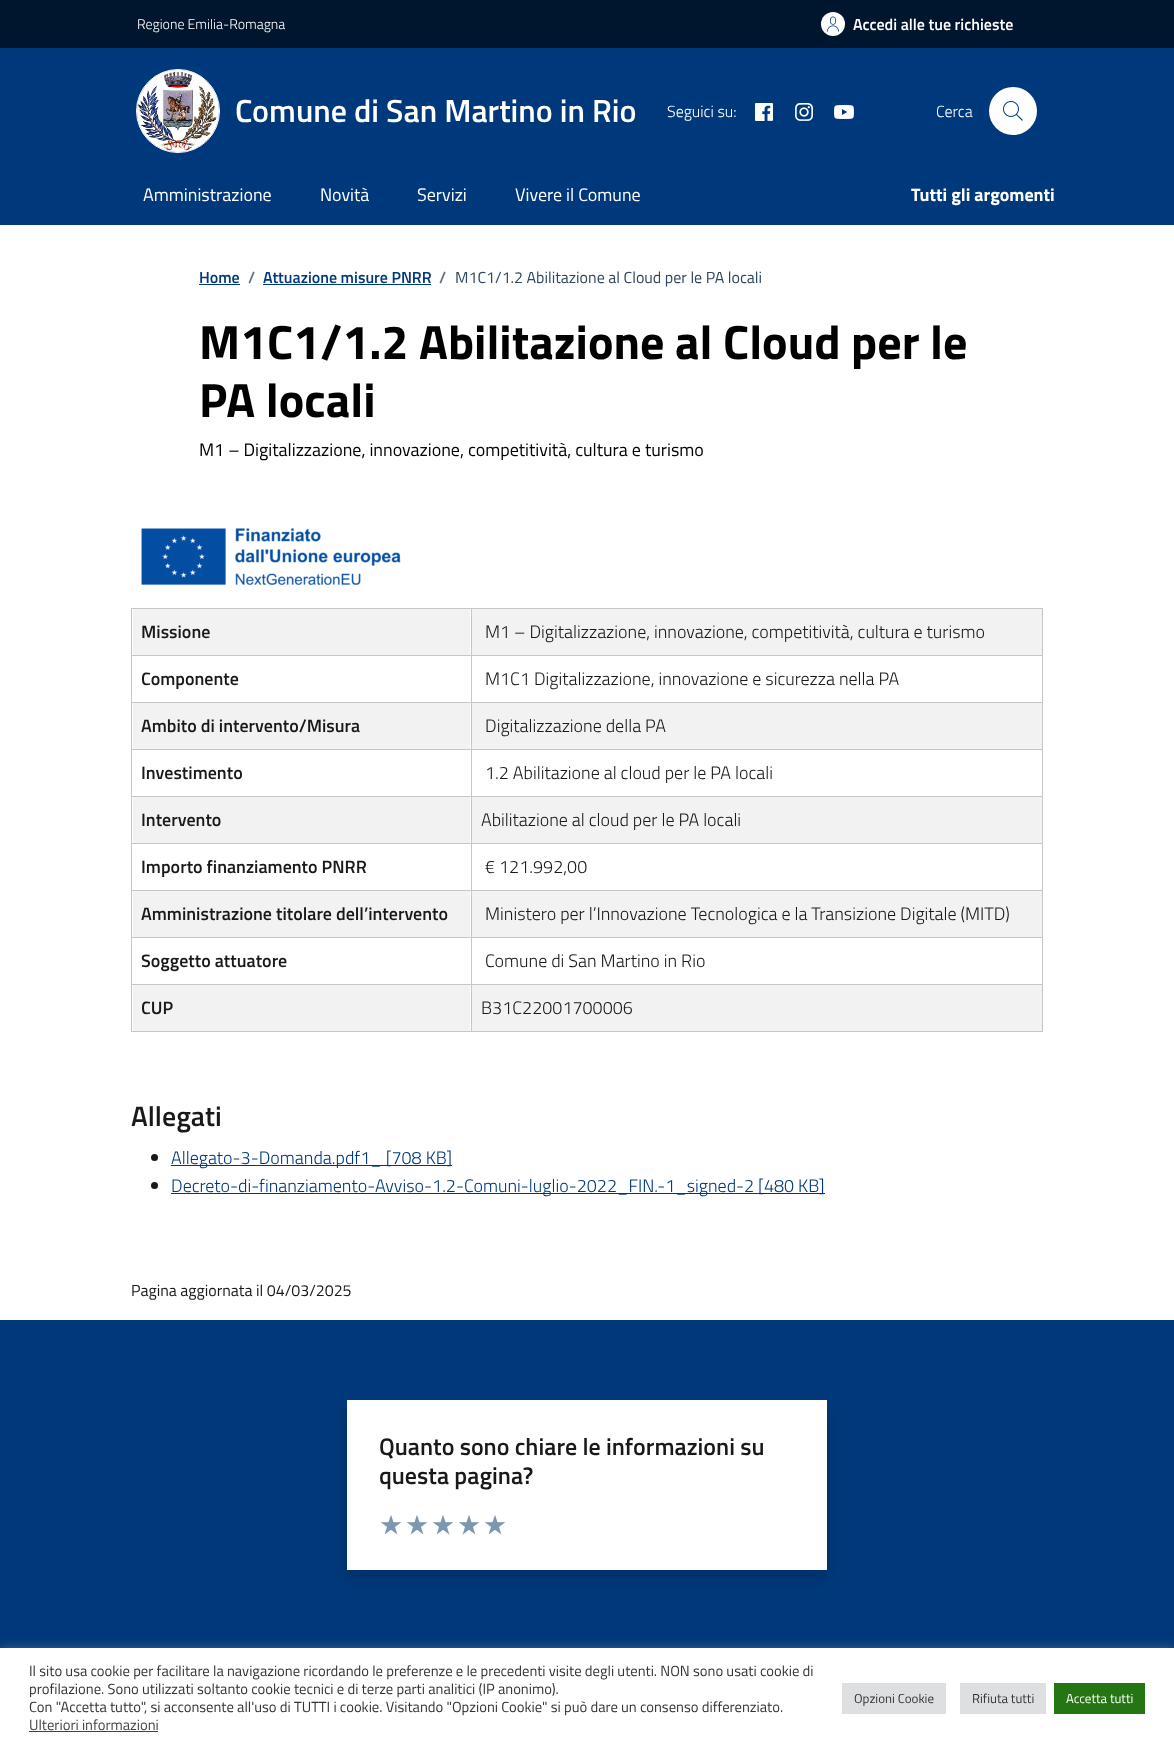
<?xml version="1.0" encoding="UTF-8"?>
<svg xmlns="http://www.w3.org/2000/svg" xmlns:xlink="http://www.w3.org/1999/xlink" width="1174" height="1748">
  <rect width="100%" height="100%" fill="#ffffff" />
  <rect width="1174" height="48" fill="#00152e" />
  <circle cx="833" cy="24" r="12" fill="#ffffff" />
  <image x="827" y="16" width="12" height="16" xlink:href="image1.png" />
  <rect y="48" width="1174" height="177" fill="#00397b" />
  <circle cx="178" cy="111" r="41" fill="#ffffff" />
  <image x="137" y="70" width="82" height="82" xlink:href="image2.png" />
  <circle cx="178" cy="111" r="41.5" fill="none" stroke="#ffffff" />
  <image x="755" y="103" width="18" height="18" xlink:href="image3.png" />
  <image x="795" y="103" width="18" height="18" xlink:href="image4.png" />
  <image x="834" y="105" width="20" height="14" xlink:href="image5.png" />
  <circle cx="1013" cy="111" r="24" fill="#ffffff" />
  <image x="1003" y="101" width="20" height="20" xlink:href="image6.png" />
  <rect x="199" y="284" width="41" height="1" fill="#00397b" />
  <rect x="263" y="284" width="168" height="1" fill="#00397b" />
  <image x="141" y="528" width="260" height="58" xlink:href="image7.png" />
  <rect x="131" y="608" width="912" height="1" fill="#c5c7c9" />
  <rect x="1042" y="608" width="1" height="424" fill="#c5c7c9" />
  <rect x="131" y="1031" width="912" height="1" fill="#c5c7c9" />
  <rect x="131" y="608" width="1" height="424" fill="#c5c7c9" />
  <rect x="133" y="609" width="337" height="46" fill="#f2f2f2" />
  <rect x="472" y="609" width="570" height="46" fill="#f2f2f2" />
  <rect x="131" y="655" width="912" height="1" fill="#c5c7c9" />
  <rect x="131" y="702" width="912" height="1" fill="#c5c7c9" />
  <rect x="133" y="703" width="337" height="46" fill="#f2f2f2" />
  <rect x="472" y="703" width="570" height="46" fill="#f2f2f2" />
  <rect x="131" y="749" width="912" height="1" fill="#c5c7c9" />
  <rect x="131" y="796" width="912" height="1" fill="#c5c7c9" />
  <rect x="133" y="797" width="337" height="46" fill="#f2f2f2" />
  <rect x="472" y="797" width="570" height="46" fill="#f2f2f2" />
  <rect x="131" y="843" width="912" height="1" fill="#c5c7c9" />
  <rect x="131" y="890" width="912" height="1" fill="#c5c7c9" />
  <rect x="133" y="891" width="337" height="46" fill="#f2f2f2" />
  <rect x="472" y="891" width="570" height="46" fill="#f2f2f2" />
  <rect x="131" y="937" width="912" height="1" fill="#c5c7c9" />
  <rect x="131" y="984" width="912" height="1" fill="#c5c7c9" />
  <rect x="133" y="985" width="337" height="46" fill="#f2f2f2" />
  <rect x="472" y="985" width="570" height="46" fill="#f2f2f2" />
  <rect x="471" y="608" width="1" height="424" fill="#c5c7c9" />
  <circle cx="154.5" cy="1157.5" r="3.5" fill="#191919" />
  <rect x="171" y="1165" width="281" height="1" fill="#00397b" />
  <circle cx="154.5" cy="1185.5" r="3.5" fill="#191919" />
  <rect x="171" y="1193" width="654" height="1" fill="#00397b" />
  <rect y="1320" width="1174" height="328" fill="#00397b" />
  <rect x="347" y="1409" width="480" height="170" fill="#000000" fill-opacity="0.15" filter="blur(9px)" />
  <rect x="347" y="1400" width="480" height="170" fill="#ffffff" />
  <image x="380" y="1515" width="22" height="20" xlink:href="image8.png" />
  <image x="406" y="1515" width="22" height="20" xlink:href="image8.png" />
  <image x="432" y="1515" width="22" height="20" xlink:href="image8.png" />
  <image x="458" y="1515" width="22" height="20" xlink:href="image8.png" />
  <image x="484" y="1515" width="22" height="20" xlink:href="image8.png" />
  <rect y="1647" width="1174" height="100" fill="#acabab" fill-opacity="0.3" filter="blur(5px)" />
  <rect y="1648" width="1174" height="100" fill="#ffffff" />
  <rect x="29" y="1731" width="129" height="1" fill="#444444" />
  <rect x="842" y="1683" width="104" height="31" fill="#dedfe0" />
  <rect x="960" y="1683" width="86" height="31" fill="#dedfe0" />
  <rect x="1054" y="1683" width="91" height="31" fill="#257515" />
  <text x="137" y="29" style="font-family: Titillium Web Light; font-size: 14px; font-weight: 300; fill: #ffffff">Regione Emilia-Romagna</text>
  <text x="853" y="30" style="font-family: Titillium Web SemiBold; font-size: 16px; font-weight: 600; fill: #ffffff">Accedi alle tue richieste</text>
  <text x="235" y="122" style="font-family: Titillium Web SemiBold; font-size: 32px; font-weight: 600; fill: #ffffff">Comune di San Martino in Rio</text>
  <text x="667" y="117" style="font-family: Titillium Web Light; font-size: 16px; font-weight: 300; fill: #ffffff">Seguici su:</text>
  <text x="936" y="117" style="font-family: Titillium Web Light; font-size: 16px; font-weight: 300; fill: #ffffff">Cerca</text>
  <text x="143" y="201" style="font-family: Titillium Web; font-size: 18px; fill: #ffffff">Amministrazione</text>
  <text x="320" y="201" style="font-family: Titillium Web; font-size: 18px; fill: #ffffff">Novità</text>
  <text x="417" y="201" style="font-family: Titillium Web; font-size: 18px; fill: #ffffff">Servizi</text>
  <text x="515" y="201" style="font-family: Titillium Web; font-size: 18px; fill: #ffffff">Vivere il Comune</text>
  <text x="911" y="201" style="font-family: Titillium Web; font-size: 18px; font-weight: bold; fill: #ffffff">Tutti gli argomenti</text>
  <text x="199" y="283" style="font-family: Titillium Web SemiBold; font-size: 16px; font-weight: 600; fill: #00397b">Home</text>
  <text x="248" y="283" style="font-family: Titillium Web SemiBold; font-size: 16px; font-weight: 600; fill: #5d7083">/</text>
  <text x="263" y="283" style="font-family: Titillium Web SemiBold; font-size: 16px; font-weight: 600; fill: #00397b">Attuazione misure PNRR</text>
  <text x="439" y="283" style="font-family: Titillium Web SemiBold; font-size: 16px; font-weight: 600; fill: #5d7083">/</text>
  <text x="455" y="283" style="font-family: Titillium Web; font-size: 16px; fill: #30475f">M1C1/1.2 Abilitazione al Cloud per le PA locali</text>
  <text x="199" y="359" style="font-family: Titillium Web; font-size: 48px; font-weight: bold; fill: #000000">M1C1/1.2 Abilitazione al Cloud per le</text>
  <text x="199" y="417" style="font-family: Titillium Web; font-size: 48px; font-weight: bold; fill: #000000">PA locali</text>
  <text x="199" y="456" style="font-family: Titillium Web; font-size: 18px; fill: #000000">M1 – Digitalizzazione, innovazione, competitività, cultura e turismo</text>
  <text x="141" y="638" style="font-family: Titillium Web SemiBold; font-size: 18px; font-weight: 600; fill: #191919">Missione</text>
  <text x="485" y="638" style="font-family: Titillium Web Light; font-size: 18px; font-weight: 300; fill: #191919">M1 – Digitalizzazione, innovazione, competitività, cultura e turismo</text>
  <text x="141" y="685" style="font-family: Titillium Web SemiBold; font-size: 18px; font-weight: 600; fill: #191919">Componente</text>
  <text x="485" y="685" style="font-family: Titillium Web Light; font-size: 18px; font-weight: 300; fill: #191919">M1C1 Digitalizzazione, innovazione e sicurezza nella PA</text>
  <text x="141" y="732" style="font-family: Titillium Web SemiBold; font-size: 18px; font-weight: 600; fill: #191919">Ambito di intervento/Misura</text>
  <text x="485" y="732" style="font-family: Titillium Web Light; font-size: 18px; font-weight: 300; fill: #191919">Digitalizzazione della PA</text>
  <text x="141" y="779" style="font-family: Titillium Web SemiBold; font-size: 18px; font-weight: 600; fill: #191919">Investimento</text>
  <text x="485" y="779" style="font-family: Titillium Web Light; font-size: 18px; font-weight: 300; fill: #191919">1.2 Abilitazione al cloud per le PA locali</text>
  <text x="141" y="826" style="font-family: Titillium Web SemiBold; font-size: 18px; font-weight: 600; fill: #191919">Intervento</text>
  <text x="481" y="826" style="font-family: Titillium Web Light; font-size: 18px; font-weight: 300; fill: #191919">Abilitazione al cloud per le PA locali</text>
  <text x="141" y="873" style="font-family: Titillium Web SemiBold; font-size: 18px; font-weight: 600; fill: #191919">Importo finanziamento PNRR</text>
  <text x="485" y="873" style="font-family: Titillium Web Light; font-size: 18px; font-weight: 300; fill: #191919">€ 121.992,00</text>
  <text x="141" y="920" style="font-family: Titillium Web SemiBold; font-size: 18px; font-weight: 600; fill: #191919">Amministrazione titolare dell’intervento</text>
  <text x="485" y="920" style="font-family: Titillium Web Light; font-size: 18px; font-weight: 300; fill: #191919">Ministero per l’Innovazione Tecnologica e la Transizione Digitale (MITD)</text>
  <text x="141" y="967" style="font-family: Titillium Web SemiBold; font-size: 18px; font-weight: 600; fill: #191919">Soggetto attuatore</text>
  <text x="485" y="967" style="font-family: Titillium Web Light; font-size: 18px; font-weight: 300; fill: #191919">Comune di San Martino in Rio</text>
  <text x="141" y="1014" style="font-family: Titillium Web SemiBold; font-size: 18px; font-weight: 600; fill: #191919">CUP</text>
  <text x="481" y="1014" style="font-family: Titillium Web Light; font-size: 18px; font-weight: 300; fill: #191919">B31C22001700006</text>
  <text x="131" y="1126" style="font-family: Titillium Web SemiBold; font-size: 28px; font-weight: 600; fill: #191919">Allegati</text>
  <text x="171" y="1164" style="font-family: Titillium Web Light; font-size: 18px; font-weight: 300; fill: #00397b">Allegato-3-Domanda.pdf1_ [708 KB]</text>
  <text x="171" y="1192" style="font-family: Titillium Web Light; font-size: 18px; font-weight: 300; fill: #00397b">Decreto-di-finanziamento-Avviso-1.2-Comuni-luglio-2022_FIN.-1_signed-2 [480 KB]</text>
  <text x="131" y="1296" style="font-family: Titillium Web; font-size: 16px; fill: #191919">Pagina aggiornata il 04/03/2025</text>
  <text x="379" y="1455" style="font-family: Titillium Web SemiBold; font-size: 24px; font-weight: 600; fill: #191919">Quanto sono chiare le informazioni su</text>
  <text x="379" y="1484" style="font-family: Titillium Web SemiBold; font-size: 24px; font-weight: 600; fill: #191919">questa pagina?</text>
  <text x="29" y="1676" style="font-family: Titillium Web; font-size: 14.67px; fill: #333333">Il sito usa cookie per facilitare la navigazione ricordando le preferenze e le precedenti visite degli utenti. NON sono usati cookie di</text>
  <text x="29" y="1694" style="font-family: Titillium Web; font-size: 14.67px; fill: #333333">profilazione. Sono utilizzati soltanto cookie tecnici e di terze parti analitici (IP anonimo).</text>
  <text x="29" y="1712" style="font-family: Titillium Web; font-size: 14.67px; fill: #333333">Con "Accetta tutto", si acconsente all'uso di TUTTI i cookie. Visitando "Opzioni Cookie" si può dare un consenso differenziato.</text>
  <text x="29" y="1730" style="font-family: Titillium Web; font-size: 14.67px; fill: #444444">Ulteriori informazioni</text>
  <text x="854" y="1703" style="font-family: Titillium Web; font-size: 13px; fill: #333333">Opzioni Cookie</text>
  <text x="972" y="1703" style="font-family: Titillium Web; font-size: 13px; fill: #333333">Rifiuta tutti</text>
  <text x="1066" y="1703" style="font-family: Titillium Web; font-size: 13px; fill: #ffffff">Accetta tutti</text>
</svg>
